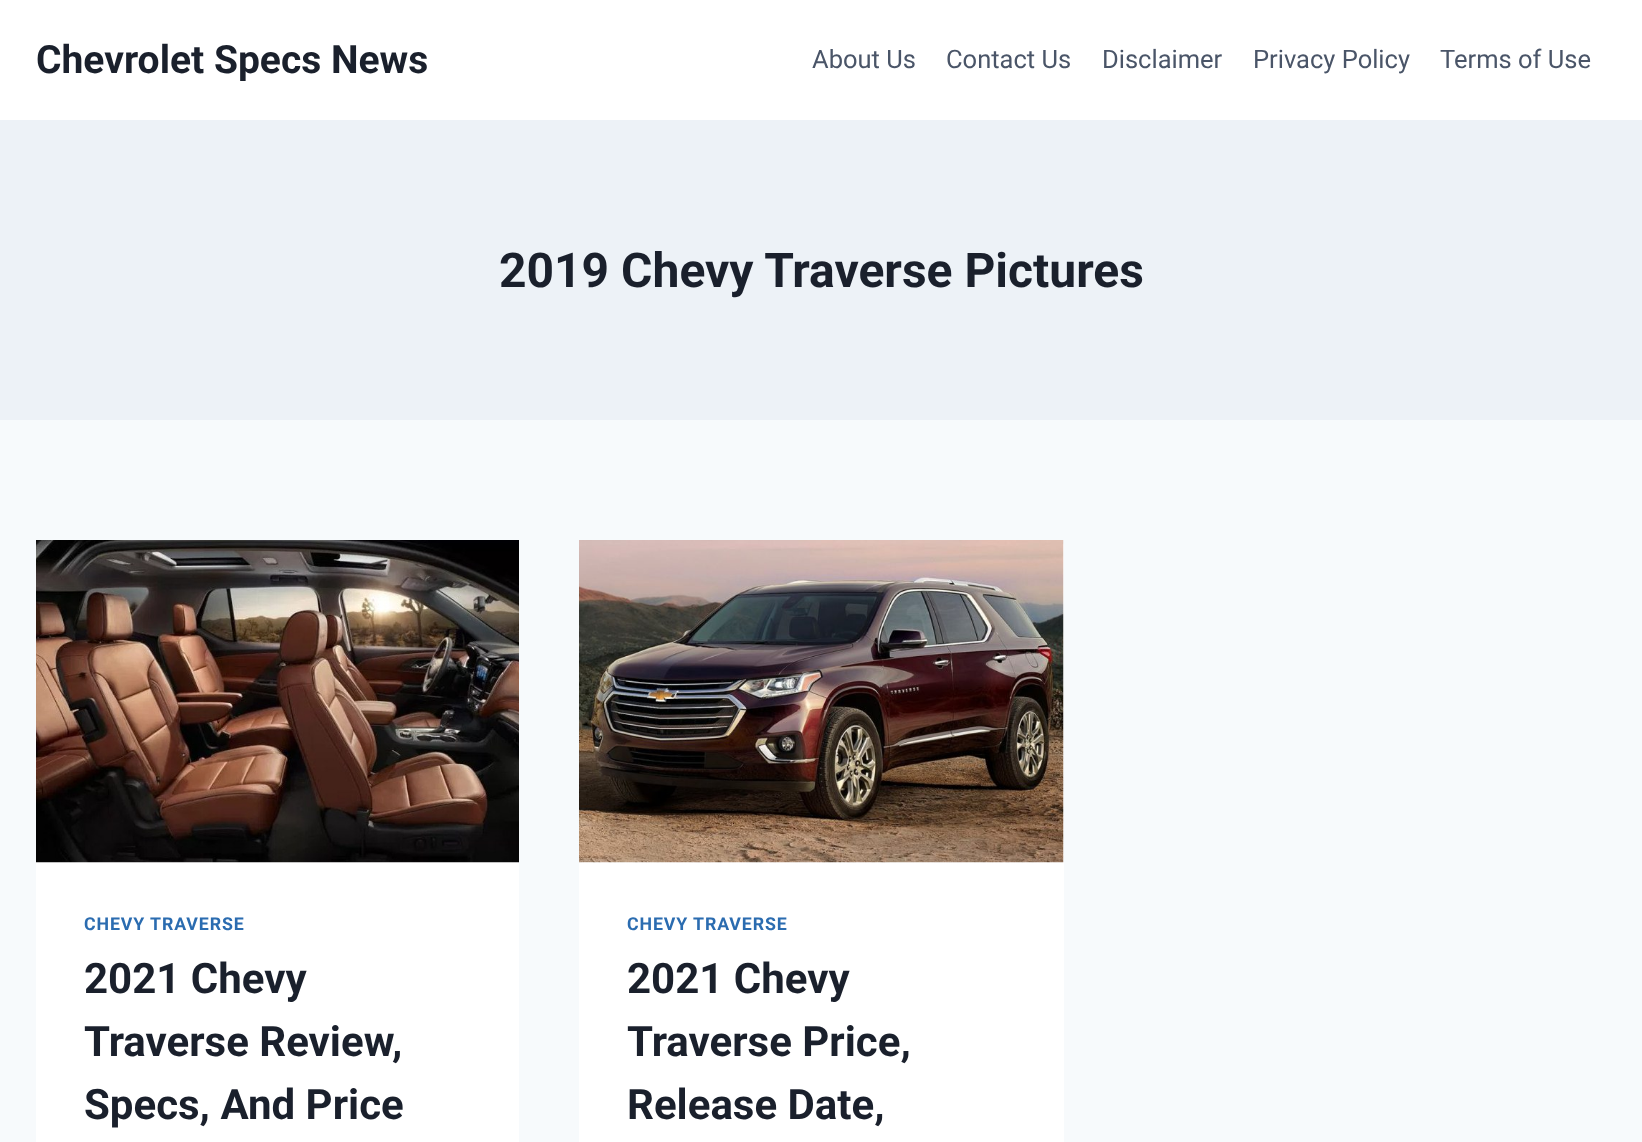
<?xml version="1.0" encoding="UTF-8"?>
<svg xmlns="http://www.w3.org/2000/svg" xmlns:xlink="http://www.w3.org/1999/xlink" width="1642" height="1142">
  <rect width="100%" height="100%" fill="#f7fafc" />
  <rect width="1642" height="120" fill="#ffffff" />
  <rect y="120" width="1642" height="300" fill="#edf2f7" />
  <rect x="36" y="862" width="483" height="280" fill="#ffffff" />
  <image x="36" y="540" width="483" height="323" xlink:href="image1.png" />
  <rect x="579" y="540" width="485" height="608" rx="6" fill="#ffffff" />
  <image x="579" y="540" width="485" height="323" xlink:href="image2.png" />
  <text x="36" y="73" style="font-family: Roboto; font-size: 39px; font-weight: bold; fill: #1a202c">Chevrolet Specs News</text>
  <text x="812" y="68" style="font-family: Roboto; font-size: 25.5px; fill: #4a5568">About Us</text>
  <text x="946" y="68" style="font-family: Roboto; font-size: 25.5px; fill: #4a5568">Contact Us</text>
  <text x="1102" y="68" style="font-family: Roboto; font-size: 25.5px; fill: #4a5568">Disclaimer</text>
  <text x="1253" y="68" style="font-family: Roboto; font-size: 25.5px; fill: #4a5568">Privacy Policy</text>
  <text x="1440" y="68" style="font-family: Roboto; font-size: 25.5px; fill: #4a5568">Terms of Use</text>
  <text x="499" y="287" style="font-family: Roboto; font-size: 48px; font-weight: bold; fill: #1a202c">2019 Chevy Traverse Pictures</text>
  <text x="84" y="930" style="font-family: Roboto; font-size: 17.75px; font-weight: bold; letter-spacing: 0.9px; fill: #2b6cb0">CHEVY TRAVERSE</text>
  <text x="84" y="993" style="font-family: Roboto; font-size: 42px; font-weight: bold; fill: #1a202c">2021 Chevy</text>
  <text x="84" y="1056" style="font-family: Roboto; font-size: 42px; font-weight: bold; fill: #1a202c">Traverse Review,</text>
  <text x="84" y="1119" style="font-family: Roboto; font-size: 42px; font-weight: bold; fill: #1a202c">Specs, And Price</text>
  <text x="627" y="930" style="font-family: Roboto; font-size: 17.75px; font-weight: bold; letter-spacing: 0.9px; fill: #2b6cb0">CHEVY TRAVERSE</text>
  <text x="627" y="993" style="font-family: Roboto; font-size: 42px; font-weight: bold; fill: #1a202c">2021 Chevy</text>
  <text x="627" y="1056" style="font-family: Roboto; font-size: 42px; font-weight: bold; fill: #1a202c">Traverse Price,</text>
  <text x="627" y="1119" style="font-family: Roboto; font-size: 42px; font-weight: bold; fill: #1a202c">Release Date,</text>
</svg>
